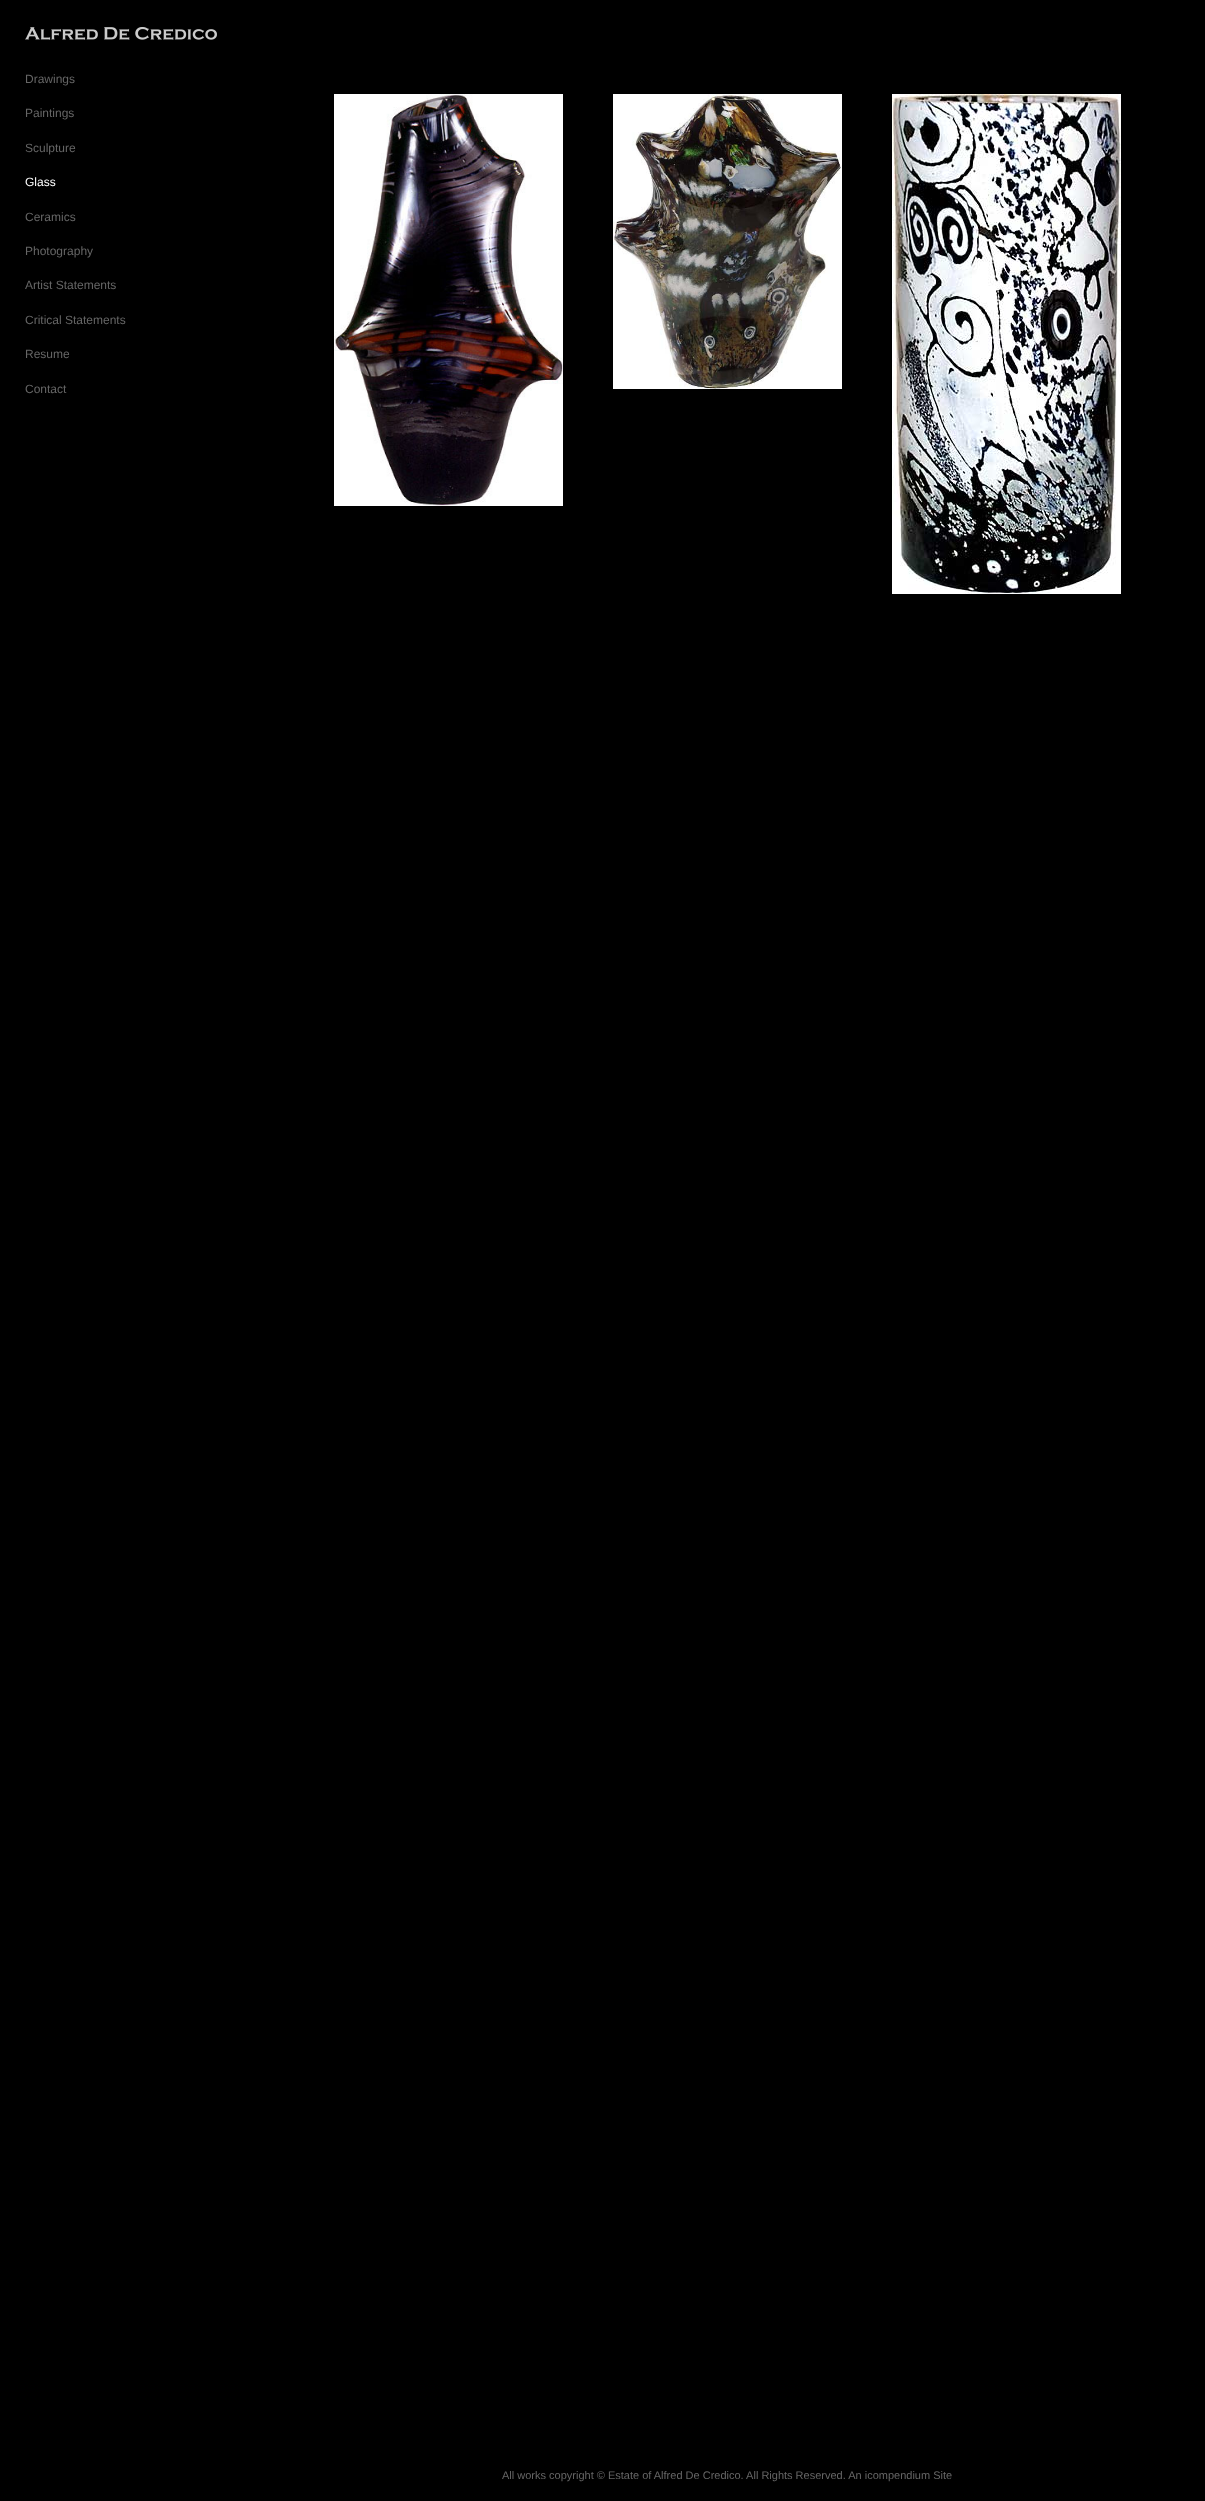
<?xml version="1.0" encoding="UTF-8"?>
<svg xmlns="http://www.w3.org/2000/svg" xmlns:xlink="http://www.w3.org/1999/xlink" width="1205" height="2501">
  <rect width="100%" height="100%" fill="#000000" />
  <image x="25" y="27" width="192" height="13" xlink:href="image1.png" />
  <image x="334" y="94" width="229" height="412" xlink:href="image2.png" />
  <image x="613" y="94" width="229" height="295" xlink:href="image3.png" />
  <image x="892" y="94" width="229" height="500" xlink:href="image4.png" />
  <text x="25" y="83" style="font-family: Liberation Sans; font-size: 12px; fill: #666666">Drawings</text>
  <text x="25" y="117" style="font-family: Liberation Sans; font-size: 12px; fill: #666666">Paintings</text>
  <text x="25" y="152" style="font-family: Liberation Sans; font-size: 12px; fill: #666666">Sculpture</text>
  <text x="25" y="186" style="font-family: Liberation Sans; font-size: 12px; fill: #ffffff">Glass</text>
  <text x="25" y="221" style="font-family: Liberation Sans; font-size: 12px; fill: #666666">Ceramics</text>
  <text x="25" y="255" style="font-family: Liberation Sans; font-size: 12px; fill: #666666">Photography</text>
  <text x="25" y="289" style="font-family: Liberation Sans; font-size: 12px; fill: #666666">Artist Statements</text>
  <text x="25" y="324" style="font-family: Liberation Sans; font-size: 12px; fill: #666666">Critical Statements</text>
  <text x="25" y="358" style="font-family: Liberation Sans; font-size: 12px; fill: #666666">Resume</text>
  <text x="25" y="393" style="font-family: Liberation Sans; font-size: 12px; fill: #666666">Contact</text>
  <text x="502" y="2479" style="font-family: Liberation Sans; font-size: 11px; fill: #666666">All works copyright © Estate of Alfred De Credico. All Rights Reserved. An icompendium Site</text>
</svg>
